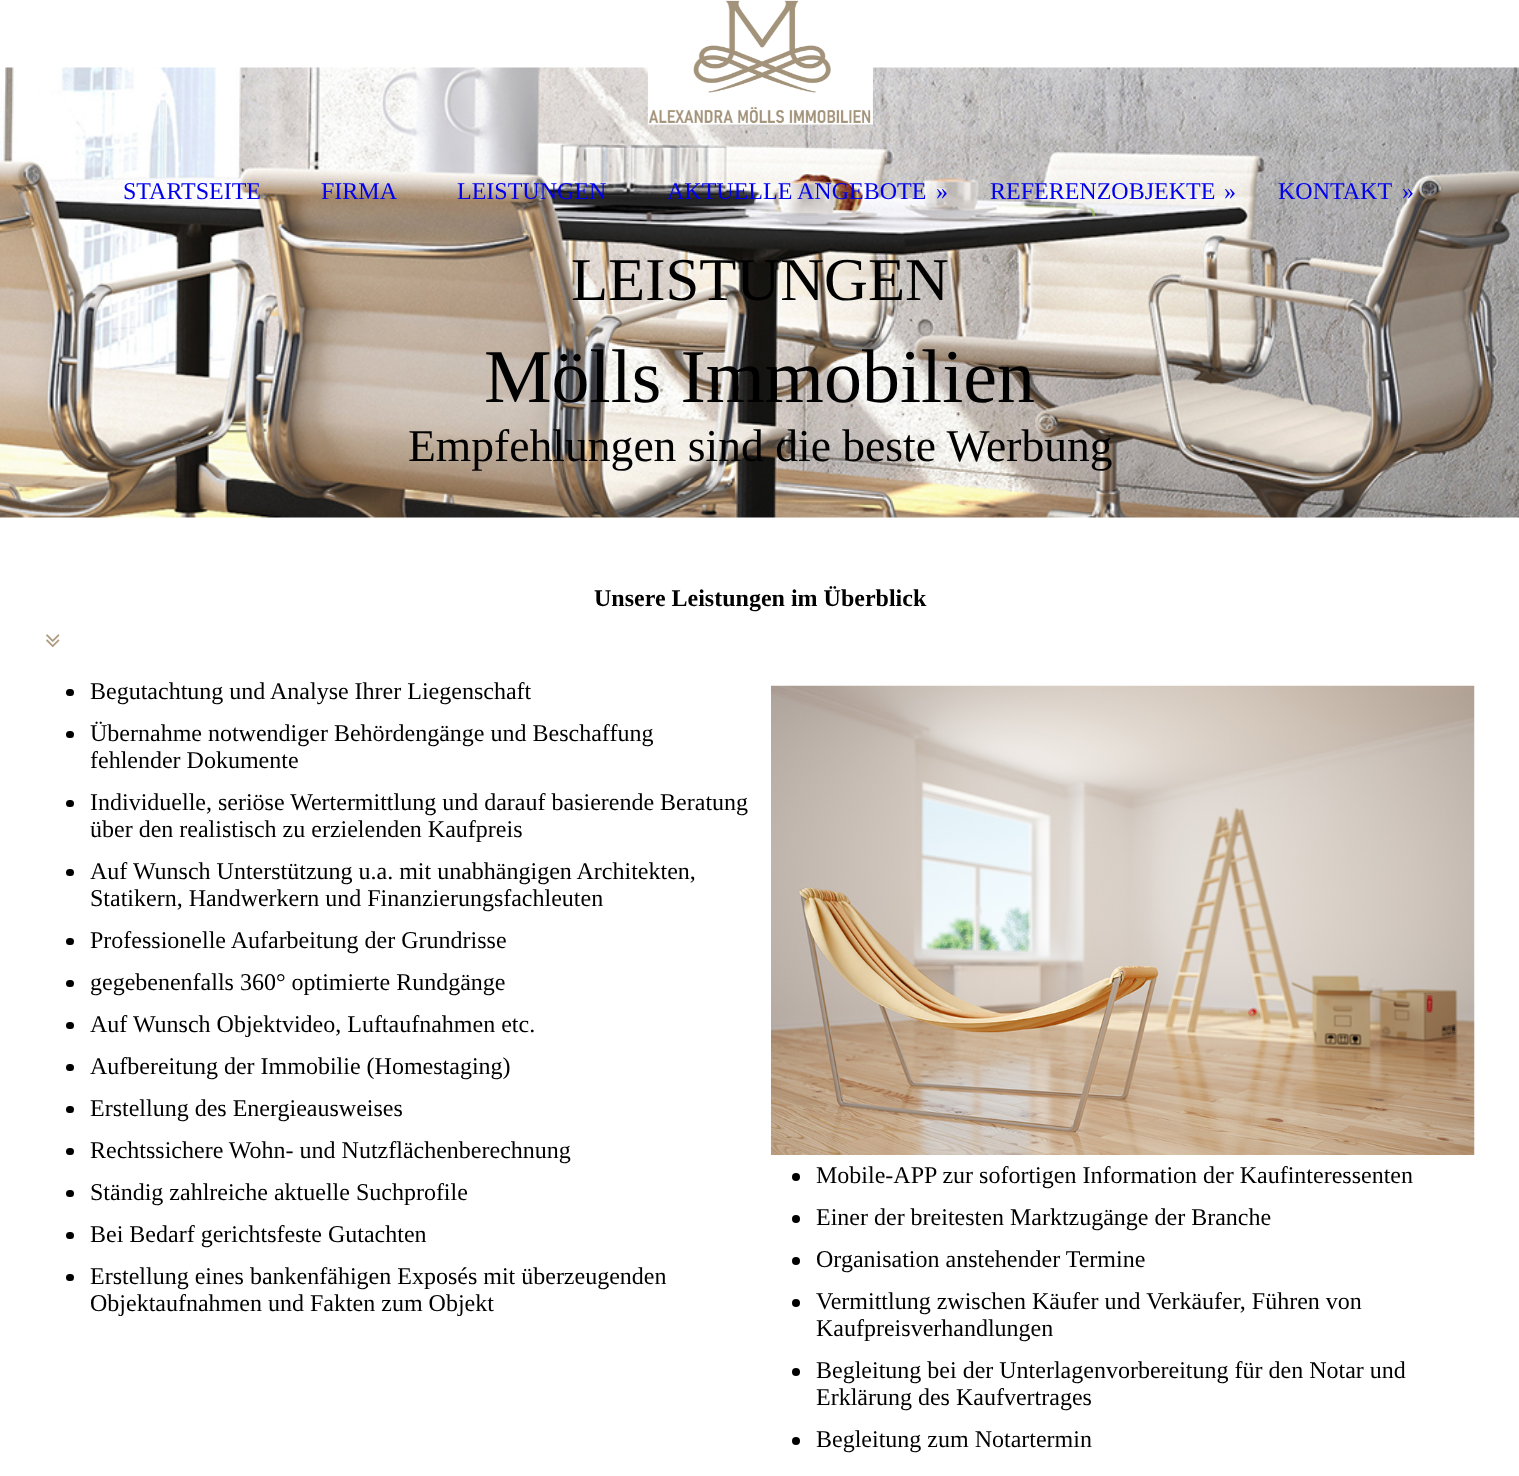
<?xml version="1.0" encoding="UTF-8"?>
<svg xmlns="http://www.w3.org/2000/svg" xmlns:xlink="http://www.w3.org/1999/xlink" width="1519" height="1476">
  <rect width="100%" height="100%" fill="#ffffff" />
  <image x="0" y="67" width="1519" height="451" xlink:href="image2.png" />
  <image x="647" y="0" width="226" height="125" xlink:href="image1.png" />
  <image x="46" y="634" width="14" height="14" xlink:href="image3.png" />
  <rect x="66" y="689" width="8" height="7" rx="3.5" fill="#000000" />
  <rect x="66" y="731" width="8" height="7" rx="3.5" fill="#000000" />
  <rect x="66" y="800" width="8" height="7" rx="3.5" fill="#000000" />
  <rect x="66" y="869" width="8" height="7" rx="3.5" fill="#000000" />
  <rect x="66" y="938" width="8" height="7" rx="3.5" fill="#000000" />
  <rect x="66" y="980" width="8" height="7" rx="3.5" fill="#000000" />
  <rect x="66" y="1022" width="8" height="7" rx="3.5" fill="#000000" />
  <rect x="66" y="1064" width="8" height="7" rx="3.5" fill="#000000" />
  <rect x="66" y="1106" width="8" height="7" rx="3.5" fill="#000000" />
  <rect x="66" y="1148" width="8" height="7" rx="3.5" fill="#000000" />
  <rect x="66" y="1190" width="8" height="7" rx="3.5" fill="#000000" />
  <rect x="66" y="1232" width="8" height="7" rx="3.5" fill="#000000" />
  <rect x="66" y="1274" width="8" height="7" rx="3.5" fill="#000000" />
  <image x="771" y="685" width="704" height="470" xlink:href="image4.png" />
  <circle cx="796" cy="1177" r="4" fill="#000000" />
  <circle cx="796" cy="1219" r="4" fill="#000000" />
  <circle cx="796" cy="1261" r="4" fill="#000000" />
  <circle cx="796" cy="1303" r="4" fill="#000000" />
  <circle cx="796" cy="1372" r="4" fill="#000000" />
  <circle cx="796" cy="1441" r="4" fill="#000000" />
  <text x="123" y="199" style="font-family: Liberation Serif; font-size: 24px; fill: #0000ee">STARTSEITE</text>
  <text x="321" y="199" style="font-family: Liberation Serif; font-size: 24px; fill: #0000ee">FIRMA</text>
  <text x="457" y="199" style="font-family: Liberation Serif; font-size: 24px; fill: #0000ee">LEISTUNGEN</text>
  <text x="667" y="199" style="font-family: Liberation Serif; font-size: 24px; fill: #0000ee">AKTUELLE ANGEBOTE</text>
  <text x="936" y="199" style="font-family: Liberation Serif; font-size: 24px; fill: #0000ee">»</text>
  <text x="990" y="199" style="font-family: Liberation Serif; font-size: 24px; fill: #0000ee">REFERENZOBJEKTE</text>
  <text x="1224" y="199" style="font-family: Liberation Serif; font-size: 24px; fill: #0000ee">»</text>
  <text x="1278" y="199" style="font-family: Liberation Serif; font-size: 24px; fill: #0000ee">KONTAKT</text>
  <text x="1402" y="199" style="font-family: Liberation Serif; font-size: 24px; fill: #0000ee">»</text>
  <text x="571" y="300" style="font-family: Liberation Serif; font-size: 60.75px; fill: #000000">LEISTUNGEN</text>
  <text x="484" y="402" style="font-family: Liberation Serif; font-size: 76px; fill: #000000">Mölls Immobilien</text>
  <text x="408" y="461" style="font-family: Liberation Serif; font-size: 45.6px; fill: #000000">Empfehlungen sind die beste Werbung</text>
  <text x="594" y="606" style="font-family: Liberation Serif; font-size: 24px; font-weight: bold; fill: #000000">Unsere Leistungen im Überblick</text>
  <text x="90" y="699" style="font-family: Liberation Serif; font-size: 24px; fill: #000000">Begutachtung und Analyse Ihrer Liegenschaft</text>
  <text x="90" y="741" style="font-family: Liberation Serif; font-size: 24px; fill: #000000">Übernahme notwendiger Behördengänge und Beschaffung</text>
  <text x="90" y="768" style="font-family: Liberation Serif; font-size: 24px; fill: #000000">fehlender Dokumente</text>
  <text x="90" y="810" style="font-family: Liberation Serif; font-size: 24px; fill: #000000">Individuelle, seriöse Wertermittlung und darauf basierende Beratung</text>
  <text x="90" y="837" style="font-family: Liberation Serif; font-size: 24px; fill: #000000">über den realistisch zu erzielenden Kaufpreis</text>
  <text x="90" y="879" style="font-family: Liberation Serif; font-size: 24px; fill: #000000">Auf Wunsch Unterstützung u.a. mit unabhängigen Architekten,</text>
  <text x="90" y="906" style="font-family: Liberation Serif; font-size: 24px; fill: #000000">Statikern, Handwerkern und Finanzierungsfachleuten</text>
  <text x="90" y="948" style="font-family: Liberation Serif; font-size: 24px; fill: #000000">Professionelle Aufarbeitung der Grundrisse</text>
  <text x="90" y="990" style="font-family: Liberation Serif; font-size: 24px; fill: #000000">gegebenenfalls 360° optimierte Rundgänge</text>
  <text x="90" y="1032" style="font-family: Liberation Serif; font-size: 24px; fill: #000000">Auf Wunsch Objektvideo, Luftaufnahmen etc.</text>
  <text x="90" y="1074" style="font-family: Liberation Serif; font-size: 24px; fill: #000000">Aufbereitung der Immobilie (Homestaging)</text>
  <text x="90" y="1116" style="font-family: Liberation Serif; font-size: 24px; fill: #000000">Erstellung des Energieausweises</text>
  <text x="90" y="1158" style="font-family: Liberation Serif; font-size: 24px; fill: #000000">Rechtssichere Wohn- und Nutzflächenberechnung</text>
  <text x="90" y="1200" style="font-family: Liberation Serif; font-size: 24px; fill: #000000">Ständig zahlreiche aktuelle Suchprofile</text>
  <text x="90" y="1242" style="font-family: Liberation Serif; font-size: 24px; fill: #000000">Bei Bedarf gerichtsfeste Gutachten</text>
  <text x="90" y="1284" style="font-family: Liberation Serif; font-size: 24px; fill: #000000">Erstellung eines bankenfähigen Exposés mit überzeugenden</text>
  <text x="90" y="1311" style="font-family: Liberation Serif; font-size: 24px; fill: #000000">Objektaufnahmen und Fakten zum Objekt</text>
  <text x="816" y="1183" style="font-family: Liberation Serif; font-size: 24px; fill: #000000">Mobile-APP zur sofortigen Information der Kaufinteressenten</text>
  <text x="816" y="1225" style="font-family: Liberation Serif; font-size: 24px; fill: #000000">Einer der breitesten Marktzugänge der Branche</text>
  <text x="816" y="1267" style="font-family: Liberation Serif; font-size: 24px; fill: #000000">Organisation anstehender Termine</text>
  <text x="816" y="1309" style="font-family: Liberation Serif; font-size: 24px; fill: #000000">Vermittlung zwischen Käufer und Verkäufer, Führen von</text>
  <text x="816" y="1336" style="font-family: Liberation Serif; font-size: 24px; fill: #000000">Kaufpreisverhandlungen</text>
  <text x="816" y="1378" style="font-family: Liberation Serif; font-size: 24px; fill: #000000">Begleitung bei der Unterlagenvorbereitung für den Notar und</text>
  <text x="816" y="1405" style="font-family: Liberation Serif; font-size: 24px; fill: #000000">Erklärung des Kaufvertrages</text>
  <text x="816" y="1447" style="font-family: Liberation Serif; font-size: 24px; fill: #000000">Begleitung zum Notartermin</text>
</svg>
